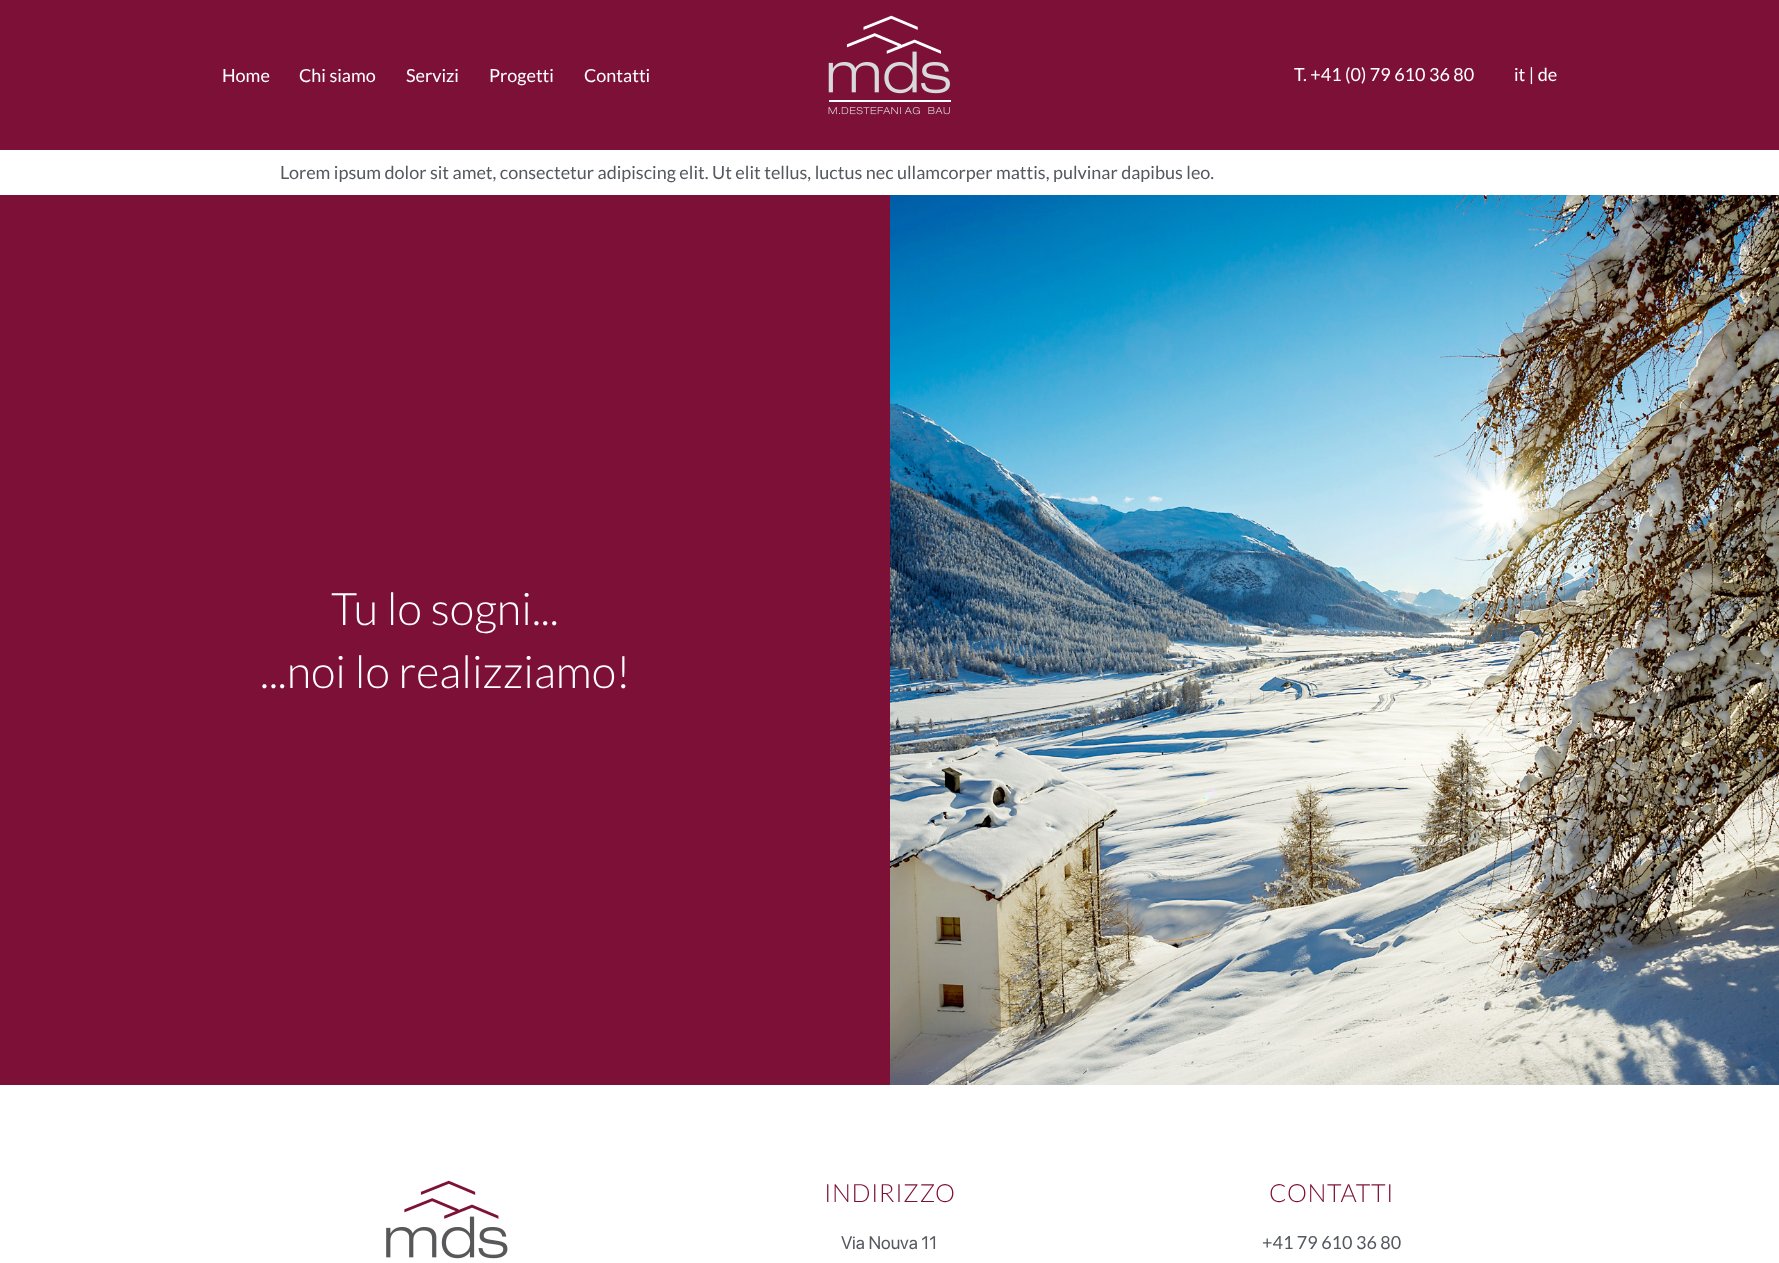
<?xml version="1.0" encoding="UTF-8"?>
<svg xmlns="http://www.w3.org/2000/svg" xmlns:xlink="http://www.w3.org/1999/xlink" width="1779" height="1263">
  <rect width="100%" height="100%" fill="#ffffff" />
  <rect width="1779" height="150" fill="#7c1036" />
  <image x="828" y="15" width="123" height="100" xlink:href="image1.png" />
  <rect y="195" width="890" height="890" fill="#7c1036" />
  <image x="890" y="195" width="889" height="890" xlink:href="image2.png" />
  <image x="386" y="1180" width="122" height="79" xlink:href="image3.png" />
  <text x="222" y="82" style="font-family: Lato; font-size: 18px; fill: #ffffff">Home</text>
  <text x="299" y="82" style="font-family: Lato; font-size: 18px; fill: #ffffff">Chi siamo</text>
  <text x="406" y="82" style="font-family: Lato; font-size: 18px; fill: #ffffff">Servizi</text>
  <text x="489" y="82" style="font-family: Lato; font-size: 18px; fill: #ffffff">Progetti</text>
  <text x="584" y="82" style="font-family: Lato; font-size: 18px; fill: #ffffff">Contatti</text>
  <text x="1294" y="81" style="font-family: Lato; font-size: 18px; fill: #ffffff">T. +41 (0) 79 610 36 80</text>
  <text x="1514" y="81" style="font-family: Lato; font-size: 18px; fill: #ffffff">it | de</text>
  <text x="280" y="179" style="font-family: Lato; font-size: 18px; fill: #54595f">Lorem ipsum dolor sit amet, consectetur adipiscing elit. Ut elit tellus, luctus nec ullamcorper mattis, pulvinar dapibus leo.</text>
  <text x="331" y="625" style="font-family: Lato; font-size: 45px; font-weight: 300; fill: #ffffff">Tu lo sogni...</text>
  <text x="260" y="688" style="font-family: Lato; font-size: 45px; font-weight: 300; fill: #ffffff">...noi lo realizziamo!</text>
  <text x="824" y="1202" style="font-family: Lato; font-size: 25px; font-weight: 300; letter-spacing: 0.5px; fill: #7c1036">INDIRIZZO</text>
  <text x="841" y="1249" style="font-family: SF Pro Display; font-size: 18px; fill: #54595f">Via Nouva 11</text>
  <text x="1269" y="1202" style="font-family: Lato; font-size: 25px; font-weight: 300; letter-spacing: 0.5px; fill: #7c1036">CONTATTI</text>
  <text x="1262" y="1249" style="font-family: Lato; font-size: 18px; fill: #54595f">+41 79 610 36 80</text>
</svg>
